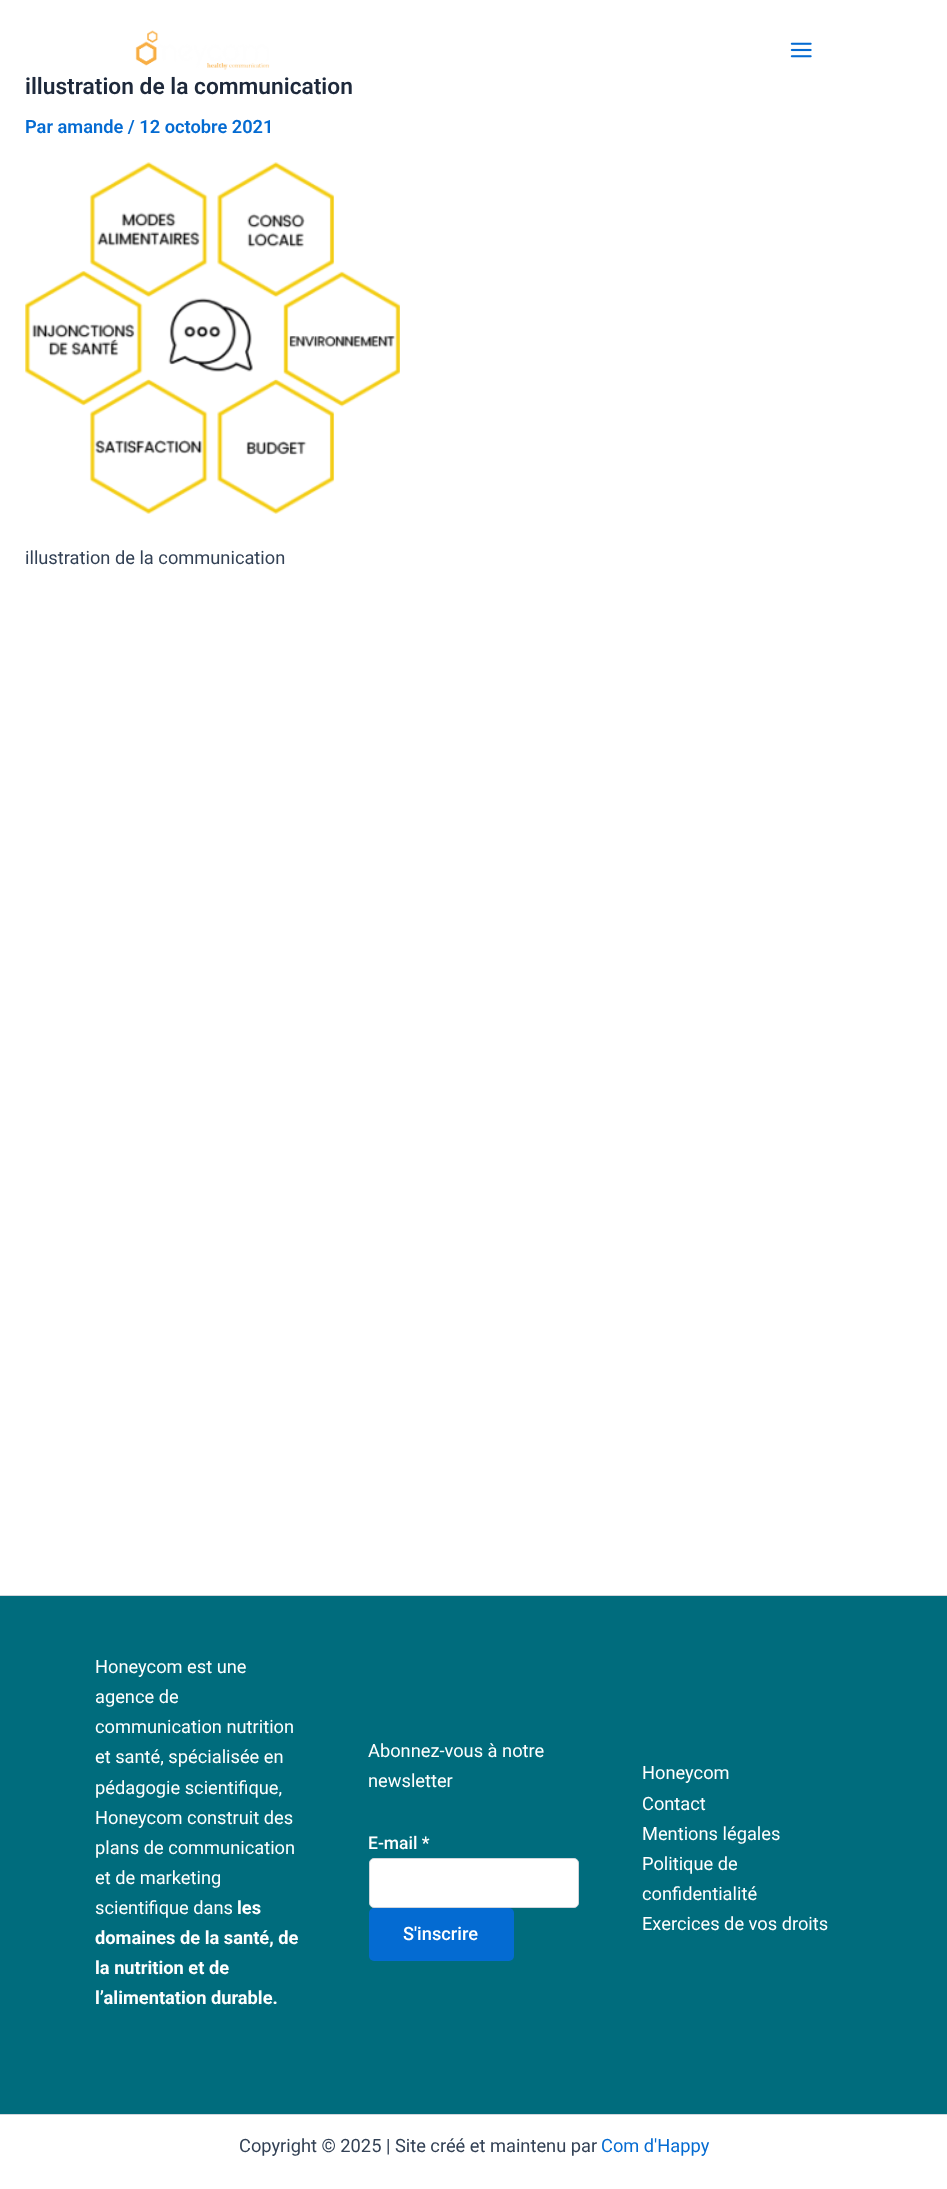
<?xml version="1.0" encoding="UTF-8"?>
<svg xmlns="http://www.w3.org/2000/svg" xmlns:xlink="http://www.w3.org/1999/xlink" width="947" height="2189">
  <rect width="100%" height="100%" fill="#ffffff" />
  <image x="135" y="30" width="135" height="40" xlink:href="image1.png" />
  <image x="790" y="42" width="22" height="16" xlink:href="image2.png" />
  <image x="25" y="162" width="375" height="352" xlink:href="image3.png" />
  <rect y="1596" width="947" height="518" fill="#006c7d" />
  <rect y="1595" width="947" height="1" fill="#d1d5db" />
  <rect x="369.5" y="1858.5" width="209" height="49" rx="4.5" fill="#ffffff" stroke="#d1d5db" />
  <rect x="369" y="1908" width="145" height="53" rx="5" fill="#046bd2" />
  <rect y="2114" width="947" height="1" fill="#d1d5db" />
  <text x="25" y="94" style="font-family: Roboto; font-size: 22.75px; font-weight: 600; fill: #1e293b">illustration de la communication</text>
  <text x="25" y="133" style="font-family: Roboto; font-size: 18.25px; font-weight: 600; fill: #046bd2">Par amande / 12 octobre 2021</text>
  <text x="25" y="564" style="font-family: Roboto; font-size: 18.25px; fill: #334155">illustration de la communication</text>
  <text x="95" y="1673" style="font-family: Roboto; font-size: 18.25px; fill: #ffffff">Honeycom est une</text>
  <text x="95" y="1703" style="font-family: Roboto; font-size: 18.25px; fill: #ffffff">agence de</text>
  <text x="95" y="1733" style="font-family: Roboto; font-size: 18.25px; fill: #ffffff">communication nutrition</text>
  <text x="95" y="1763" style="font-family: Roboto; font-size: 18.25px; fill: #ffffff">et santé, spécialisée en</text>
  <text x="95" y="1794" style="font-family: Roboto; font-size: 18.25px; fill: #ffffff">pédagogie scientifique,</text>
  <text x="95" y="1824" style="font-family: Roboto; font-size: 18.25px; fill: #ffffff">Honeycom construit des</text>
  <text x="95" y="1854" style="font-family: Roboto; font-size: 18.25px; fill: #ffffff">plans de communication</text>
  <text x="95" y="1884" style="font-family: Roboto; font-size: 18.25px; fill: #ffffff">et de marketing</text>
  <text x="95" y="1914" style="font-family: Roboto; font-size: 18.25px; fill: #ffffff">scientifique dans</text>
  <text x="237" y="1914" style="font-family: Roboto; font-size: 18.25px; font-weight: bold; fill: #ffffff">les</text>
  <text x="95" y="1944" style="font-family: Roboto; font-size: 18.25px; font-weight: bold; fill: #ffffff">domaines de la santé, de</text>
  <text x="95" y="1974" style="font-family: Roboto; font-size: 18.25px; font-weight: bold; fill: #ffffff">la nutrition et de</text>
  <text x="95" y="2004" style="font-family: Roboto; font-size: 18.25px; font-weight: bold; fill: #ffffff">l’alimentation durable.</text>
  <text x="368" y="1757" style="font-family: Roboto; font-size: 18.25px; fill: #ffffff">Abonnez-vous à notre</text>
  <text x="368" y="1787" style="font-family: Roboto; font-size: 18.25px; fill: #ffffff">newsletter</text>
  <text x="368" y="1849" style="font-family: Roboto; font-size: 17.5px; font-weight: 500; fill: #ffffff">E-mail *</text>
  <text x="403" y="1940" style="font-family: Roboto; font-size: 18.25px; font-weight: 500; fill: #ffffff">S'inscrire</text>
  <text x="642" y="1779" style="font-family: Roboto; font-size: 18.25px; fill: #ffffff">Honeycom</text>
  <text x="642" y="1810" style="font-family: Roboto; font-size: 18.25px; fill: #ffffff">Contact</text>
  <text x="642" y="1840" style="font-family: Roboto; font-size: 18.25px; fill: #ffffff">Mentions légales</text>
  <text x="642" y="1870" style="font-family: Roboto; font-size: 18.25px; fill: #ffffff">Politique de</text>
  <text x="642" y="1900" style="font-family: Roboto; font-size: 18.25px; fill: #ffffff">confidentialité</text>
  <text x="642" y="1930" style="font-family: Roboto; font-size: 18.25px; fill: #ffffff">Exercices de vos droits</text>
  <text x="239" y="2152" style="font-family: Roboto; font-size: 18.25px; fill: #334155">Copyright © 2025 | Site créé et maintenu par</text>
  <text x="601" y="2152" style="font-family: Roboto; font-size: 18.25px; fill: #046bd2">Com d'Happy</text>
</svg>
